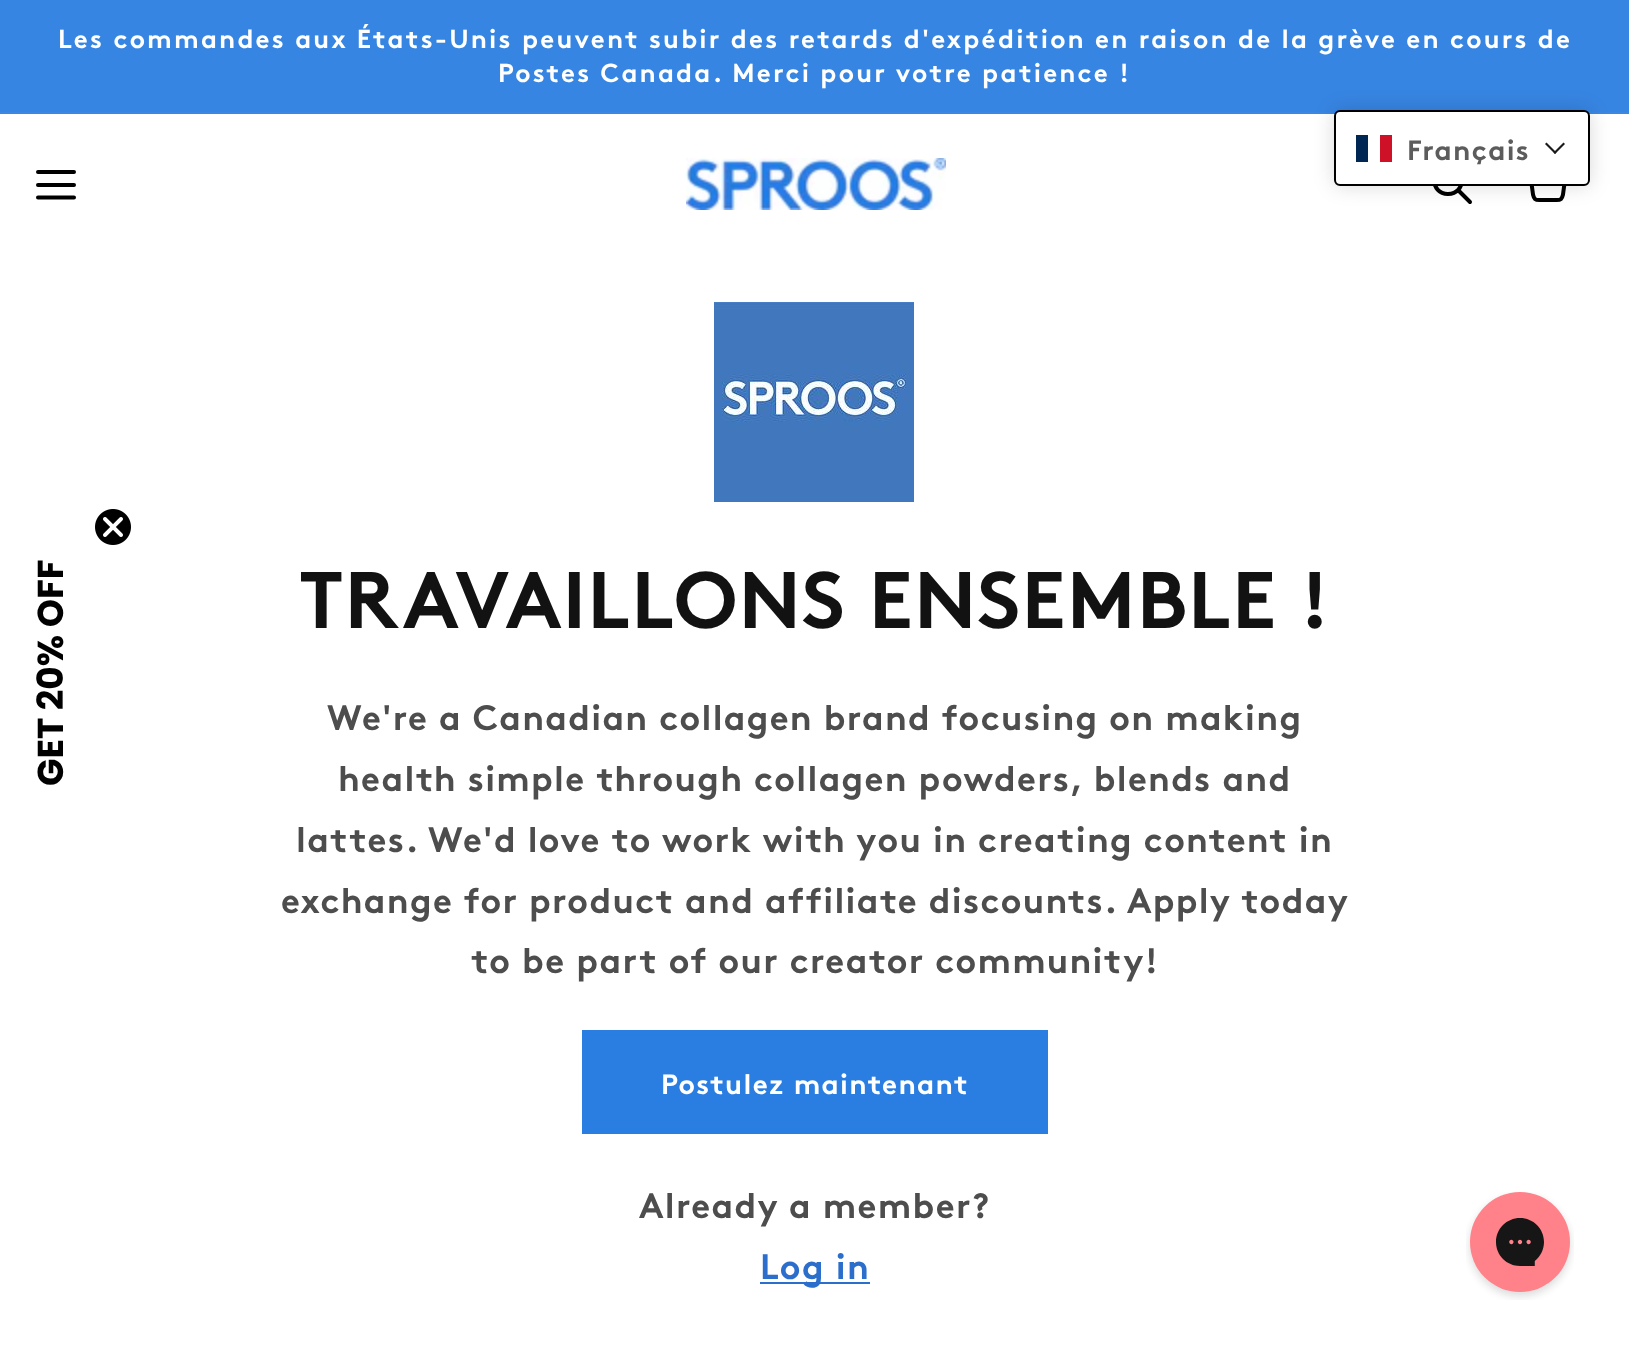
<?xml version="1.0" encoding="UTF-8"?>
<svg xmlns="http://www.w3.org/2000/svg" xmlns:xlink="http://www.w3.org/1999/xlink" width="1629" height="1345">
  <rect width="100%" height="100%" fill="#ffffff" />
  <rect y="112" width="1629" height="2" fill="#3b87e3" />
  <rect width="1629" height="112" fill="#3785e2" />
  <path d="M 1458 190 l 12 12 m -22 -8 c -18.5 0 -18.5 -28 0 -28 c 18.5 0 18.5 28 0 28 z" fill="none" stroke="#000000" stroke-width="4" stroke-linecap="round" stroke-linejoin="round" />
  <path d="M 1540 176 c -10.5 0 -10 1 -8 11 l 1 7.5 c 1 4.5 2 5.5 6.5 5.5 h 17 c 4.5 0 5.5 -1 6.5 -5.5 l 1 -7.5 c 2 -10 3 -11 -8 -11 m -16 0 h 16 m -16 0 c 0 -10.5 16 -10.5 16 0" fill="none" stroke="#000000" stroke-width="4" stroke-linecap="round" stroke-linejoin="round" />
  <rect x="1334" y="110" width="256" height="76" rx="6" fill="#000000" fill-opacity="0.15" filter="blur(10px)" />
  <rect x="1335" y="111" width="254" height="74" rx="5" fill="#ffffff" stroke="#000000" stroke-width="2" />
  <rect x="1356" y="135" width="12" height="27" fill="#002654" />
  <rect x="1380" y="135" width="12" height="27" fill="#ce1126" />
  <path d="M 1563.5 142.5 l 1.5 1.5 l -10 10 l -1.5 -1.5 z" fill="#1a1a1a" />
  <path d="M 1546.5 142.5 l 10 10 l -1.5 1.5 l -10 -10 z" fill="#1a1a1a" />
  <path d="M 38 197.5 h 36 m -36 -12.5 h 36 m -36 -13 h 36" fill="none" stroke="#000000" stroke-width="4" stroke-linecap="round" stroke-linejoin="round" />
  <image x="686" y="158" width="260" height="52" xlink:href="image1.png" />
  <image x="95" y="509" width="36" height="36" xlink:href="image2.png" />
  <image x="714" y="302" width="200" height="200" xlink:href="image3.png" />
  <rect x="582" y="1030" width="466" height="104" fill="#2a7de1" />
  <rect x="760" y="1282" width="110" height="2" fill="#2c6ecb" />
  <image x="1466" y="1192" width="108" height="108" xlink:href="image4.png" />
  <text x="58" y="48" style="font-family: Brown; font-size: 26px; font-weight: bold; letter-spacing: 2.2px; fill: #ffffff">Les commandes aux États-Unis peuvent subir des retards d'expédition en raison de la grève en cours de</text>
  <text x="498" y="82" style="font-family: Brown; font-size: 26px; font-weight: bold; letter-spacing: 2.2px; fill: #ffffff">Postes Canada. Merci pour votre patience !</text>
  <text x="1407" y="160" style="font-family: Brown; font-size: 28px; font-weight: bold; letter-spacing: 1.32px; fill: #5c5c5c">Français</text>
  <text x="63" y="786" transform="rotate(-90 63 786)" style="font-family: Poppins; font-size: 36px; font-weight: bold; fill: #000000">GET 20% OFF</text>
  <text x="299" y="628" style="font-family: Brown; font-size: 80px; font-weight: bold; letter-spacing: 1.2px; fill: #121212">TRAVAILLONS ENSEMBLE !</text>
  <text x="327" y="730" style="font-family: Brown; font-size: 35.2px; font-weight: bold; letter-spacing: 1.32px; fill: #4d4d4d">We're a Canadian collagen brand focusing on making</text>
  <text x="338" y="791" style="font-family: Brown; font-size: 35.2px; font-weight: bold; letter-spacing: 1.32px; fill: #4d4d4d">health simple through collagen powders, blends and</text>
  <text x="296" y="852" style="font-family: Brown; font-size: 35.2px; font-weight: bold; letter-spacing: 1.32px; fill: #4d4d4d">lattes. We'd love to work with you in creating content in</text>
  <text x="281" y="913" style="font-family: Brown; font-size: 35.2px; font-weight: bold; letter-spacing: 1.32px; fill: #4d4d4d">exchange for product and affiliate discounts. Apply today</text>
  <text x="471" y="973" style="font-family: Brown; font-size: 35.2px; font-weight: bold; letter-spacing: 1.32px; fill: #4d4d4d">to be part of our creator community!</text>
  <text x="661" y="1094" style="font-family: Brown; font-size: 28px; font-weight: bold; letter-spacing: 1.32px; fill: #ffffff">Postulez maintenant</text>
  <text x="639" y="1218" style="font-family: Brown; font-size: 35.2px; font-weight: bold; letter-spacing: 1.32px; fill: #4d4d4d">Already a member?</text>
  <text x="760" y="1279" style="font-family: Brown; font-size: 35.2px; font-weight: bold; letter-spacing: 1.32px; fill: #2c6ecb">Log in</text>
</svg>
